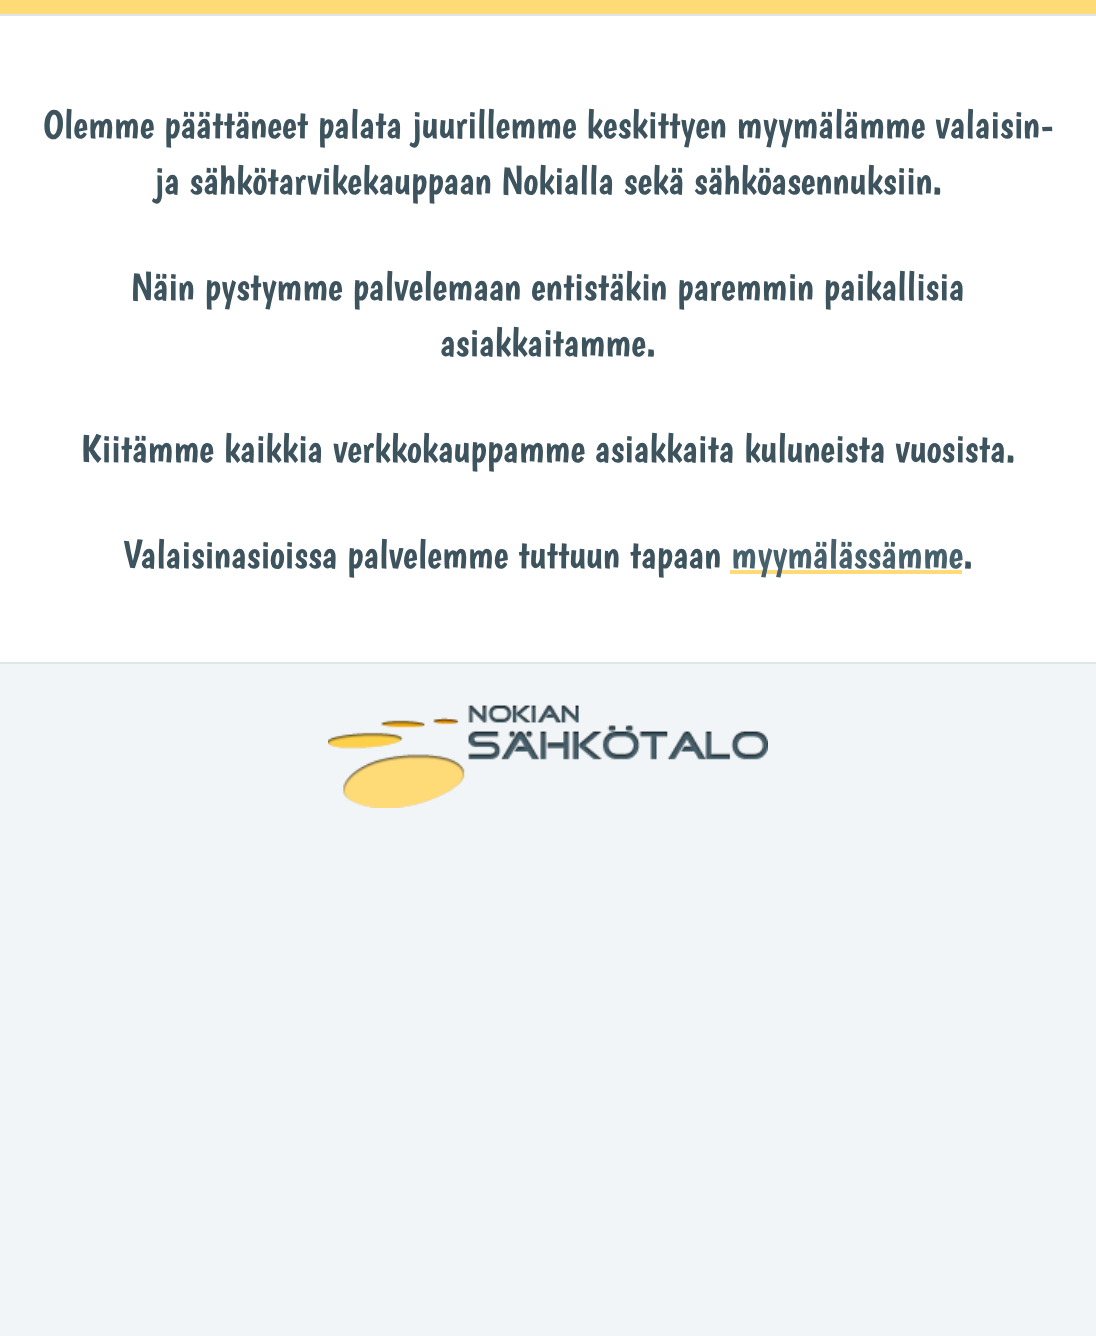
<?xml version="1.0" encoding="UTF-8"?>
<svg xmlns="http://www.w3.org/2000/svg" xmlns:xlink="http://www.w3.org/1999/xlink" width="1096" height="1336">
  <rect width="100%" height="100%" fill="#f2f5f7" />
  <rect width="1096" height="14" fill="#ffdb78" />
  <rect y="16" width="1096" height="646" fill="#ffffff" />
  <rect y="14" width="1096" height="2" fill="#dee6ea" />
  <rect x="730" y="570" width="232" height="4" fill="#ffdb78" />
  <rect y="662" width="1096" height="2" fill="#dee6ea" />
  <image x="328" y="704" width="440" height="104" xlink:href="image1.png" />
  <text x="43" y="138" style="font-family: Boogaloo; font-size: 40px; fill: #3d535e">Olemme päättäneet palata juurillemme keskittyen myymälämme valaisin-</text>
  <text x="154" y="194" style="font-family: Boogaloo; font-size: 40px; fill: #3d535e">ja sähkötarvikekauppaan Nokialla sekä sähköasennuksiin.</text>
  <text x="131" y="300" style="font-family: Boogaloo; font-size: 40px; fill: #3d535e">Näin pystymme palvelemaan entistäkin paremmin paikallisia</text>
  <text x="440" y="356" style="font-family: Boogaloo; font-size: 40px; fill: #3d535e">asiakkaitamme.</text>
  <text x="81" y="462" style="font-family: Boogaloo; font-size: 40px; fill: #3d535e">Kiitämme kaikkia verkkokauppamme asiakkaita kuluneista vuosista.</text>
  <text x="123" y="568" style="font-family: Boogaloo; font-size: 40px; fill: #3d535e">Valaisinasioissa palvelemme tuttuun tapaan</text>
  <text x="731" y="568" style="font-family: Boogaloo; font-size: 40px; fill: #46606c">myymälässämme</text>
  <text x="963" y="568" style="font-family: Boogaloo; font-size: 40px; fill: #3d535e">.</text>
</svg>
